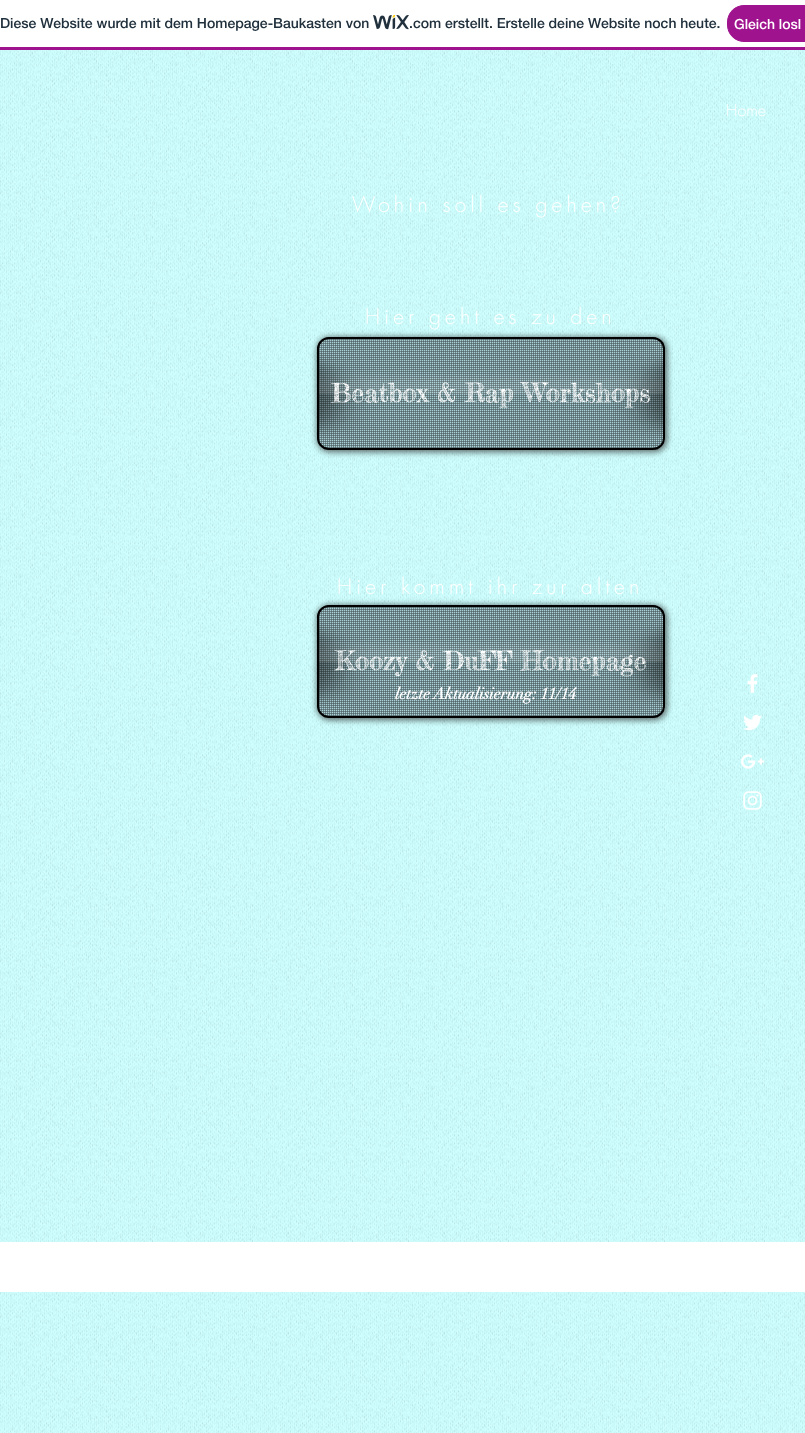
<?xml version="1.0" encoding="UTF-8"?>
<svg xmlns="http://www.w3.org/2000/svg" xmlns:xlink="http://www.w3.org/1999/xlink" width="805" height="1433">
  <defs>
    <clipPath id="clip1"><path d="M 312 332 h 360 v 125 h -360 z m 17 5 h 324 c 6.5 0 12 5.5 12 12 v 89 c 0 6.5 -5.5 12 -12 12 h -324 c -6.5 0 -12 -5.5 -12 -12 v -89 c 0 -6.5 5.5 -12 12 -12 z" clip-rule="evenodd" /></clipPath>
    <clipPath id="clip2"><path d="M 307 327 h 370 v 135 h -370 z m 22 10 h 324 c 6.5 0 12 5.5 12 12 v 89 c 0 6.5 -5.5 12 -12 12 h -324 c -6.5 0 -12 -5.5 -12 -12 v -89 c 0 -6.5 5.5 -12 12 -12 z" clip-rule="evenodd" /></clipPath>
    <clipPath id="clip3"><path d="M 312 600 h 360 v 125 h -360 z m 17 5 h 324 c 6.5 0 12 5.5 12 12 v 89 c 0 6.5 -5.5 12 -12 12 h -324 c -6.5 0 -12 -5.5 -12 -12 v -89 c 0 -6.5 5.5 -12 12 -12 z" clip-rule="evenodd" /></clipPath>
    <clipPath id="clip4"><path d="M 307 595 h 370 v 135 h -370 z m 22 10 h 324 c 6.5 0 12 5.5 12 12 v 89 c 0 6.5 -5.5 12 -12 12 h -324 c -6.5 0 -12 -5.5 -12 -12 v -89 c 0 -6.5 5.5 -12 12 -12 z" clip-rule="evenodd" /></clipPath>
  </defs>
  <rect width="100%" height="100%" fill="#ffffff" />
  <rect y="47" width="805" height="3" fill="#a0138e" />
  <image x="373" y="15" width="36" height="15" xlink:href="image1.png" />
  <rect x="727.5" y="5.5" width="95" height="36" rx="16.5" fill="#a0138e" stroke="#a0138e" />
  <rect y="50" width="805" height="1383" fill="#cfffff" />
  <image x="0" y="50" width="805" height="1383" xlink:href="image2.png" />
  <g clip-path="url(#clip1)">
    <rect x="318" y="338" width="348" height="113" rx="12" fill="#ffffff" fill-opacity="0.3" filter="blur(1.5px)" />
  </g>
  <g clip-path="url(#clip2)">
    <rect x="317" y="337" width="350" height="115" rx="13" fill="#000000" fill-opacity="0.6" filter="blur(3px)" />
  </g>
  <rect x="317" y="337" width="348" height="113" rx="12" fill="#7890a3" fill-opacity="0.38" />
  <image x="317" y="337" width="348" height="113" xlink:href="image3.png" />
  <rect x="318" y="338" width="346" height="111" rx="11" fill="none" stroke="#000000" stroke-width="2" />
  <image x="319" y="350" width="50" height="88" xlink:href="image4.png" />
  <image x="613" y="350" width="50" height="87" xlink:href="image5.png" />
  <g clip-path="url(#clip3)">
    <rect x="318" y="606" width="348" height="113" rx="12" fill="#ffffff" fill-opacity="0.3" filter="blur(1.5px)" />
  </g>
  <g clip-path="url(#clip4)">
    <rect x="317" y="605" width="350" height="115" rx="13" fill="#000000" fill-opacity="0.6" filter="blur(3px)" />
  </g>
  <rect x="317" y="605" width="348" height="113" rx="12" fill="#7890a3" fill-opacity="0.38" />
  <image x="317" y="605" width="348" height="113" xlink:href="image7.png" />
  <rect x="318" y="606" width="346" height="111" rx="11" fill="none" stroke="#000000" stroke-width="2" />
  <image x="319" y="618" width="50" height="88" xlink:href="image8.png" />
  <image x="613" y="618" width="50" height="87" xlink:href="image9.png" />
  <image x="747" y="674" width="11" height="19" xlink:href="image11.png" />
  <image x="743" y="714" width="19" height="17" xlink:href="image12.png" />
  <image x="741" y="754" width="24" height="15" xlink:href="image13.png" />
  <image x="743" y="791" width="19" height="19" xlink:href="image14.png" />
  <rect y="1242" width="805" height="50" fill="#ffffff" />
  <text x="0" y="28" style="font-family: 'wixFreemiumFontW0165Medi'; font-size: 14px; font-weight: 500; fill: #20303c">Diese Website wurde mit dem Homepage-Baukasten von</text>
  <text x="409" y="28" style="font-family: 'wixFreemiumFontW0165Medi'; font-size: 14px; font-weight: 500; fill: #20303c">.com erstellt. Erstelle deine Website noch heute.</text>
  <text x="734" y="29" style="font-family: 'wixFreemiumFontW0165Medi'; font-size: 14px; font-weight: 500; fill: #ffffff">Gleich losl</text>
  <text x="726" y="116" style="font-family: futura; font-size: 16px; font-weight: 300; fill: #ffffff">Home</text>
  <text x="352" y="212" style="font-family: futura; font-size: 21px; font-weight: 300; letter-spacing: 4.2px; fill: #ffffff">Wohin soll es gehen?</text>
  <text x="365" y="324" style="font-family: futura; font-size: 21px; font-weight: 300; letter-spacing: 4.2px; fill: #ffffff">Hier geht es zu den</text>
  <text x="331" y="402" style="font-family: Fredericka the Great; font-size: 26px; fill: #ffffff">Beatbox &amp; Rap Workshops</text>
  <image x="319" y="374" width="344" height="20" xlink:href="image6.png" />
  <text x="337" y="594" style="font-family: futura; font-size: 21px; font-weight: 300; letter-spacing: 4.2px; fill: #ffffff">Hier kommt ihr zur alten</text>
  <text x="335" y="670" style="font-family: Fredericka the Great; font-size: 26px; fill: #ffffff">Koozy &amp; DuFF Homepage</text>
  <image x="319" y="642" width="344" height="20" xlink:href="image10.png" />
  <text x="395" y="699" style="font-family: didot; font-size: 16px; font-weight: bold; fill: #ffffff">letzte Aktualisierung: 11/14</text>
</svg>
